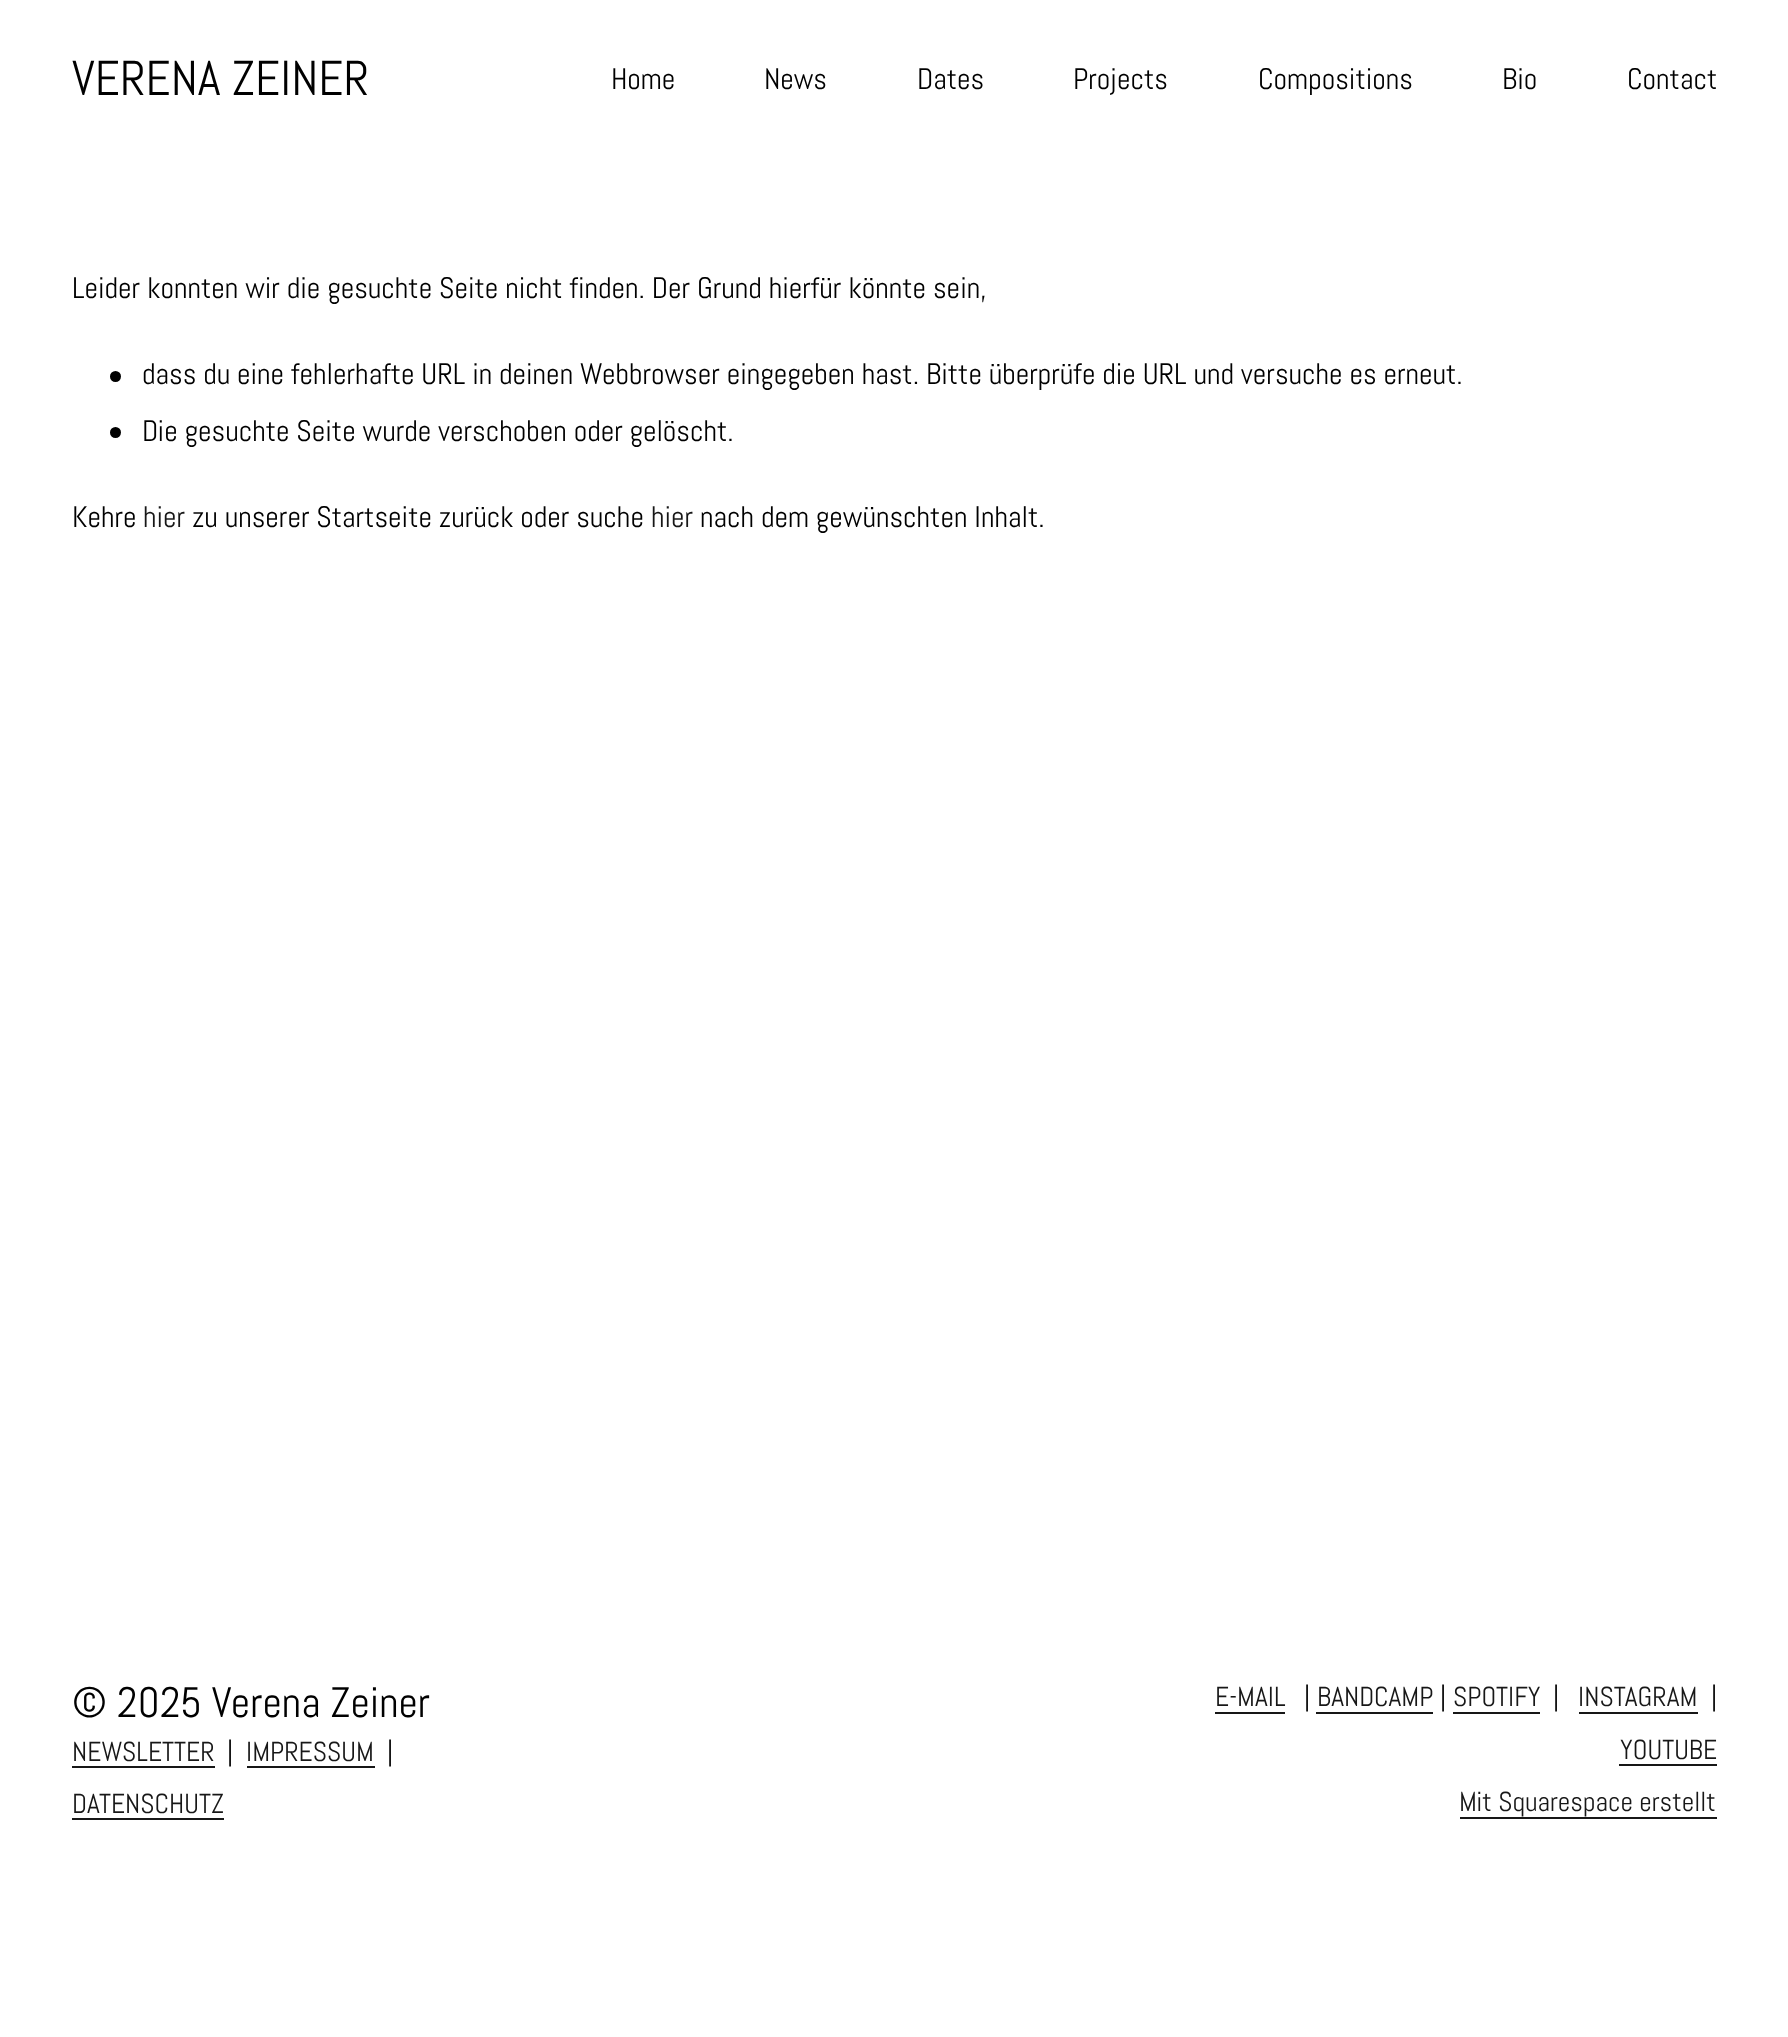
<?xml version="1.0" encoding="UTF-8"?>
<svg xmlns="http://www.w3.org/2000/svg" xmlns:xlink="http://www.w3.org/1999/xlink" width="1788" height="2037">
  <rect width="100%" height="100%" fill="#ffffff" />
  <circle cx="115.5" cy="376.5" r="5.5" fill="#000000" />
  <circle cx="115.5" cy="432.5" r="5.5" fill="#000000" />
  <rect x="1215" y="1712" width="70" height="2" fill="#171717" />
  <rect x="1316" y="1712" width="117" height="2" fill="#171717" />
  <rect x="1453" y="1712" width="87" height="2" fill="#171717" />
  <rect x="1579" y="1712" width="119" height="2" fill="#171717" />
  <rect x="1619" y="1764" width="98" height="2" fill="#171717" />
  <rect x="1460" y="1817" width="257" height="2" fill="#171717" />
  <rect x="72" y="1766" width="143" height="2" fill="#171717" />
  <rect x="247" y="1766" width="128" height="2" fill="#171717" />
  <rect x="72" y="1818" width="152" height="2" fill="#171717" />
  <text x="72" y="95" style="font-family: Abel; font-size: 49px; fill: #000000">VERENA ZEINER</text>
  <text x="611" y="89" style="font-family: Abel; font-size: 29.75px; fill: #000000">Home</text>
  <text x="764" y="89" style="font-family: Abel; font-size: 29.75px; fill: #000000">News</text>
  <text x="917" y="89" style="font-family: Abel; font-size: 29.75px; fill: #000000">Dates</text>
  <text x="1073" y="89" style="font-family: Abel; font-size: 29.75px; fill: #000000">Projects</text>
  <text x="1258" y="89" style="font-family: Abel; font-size: 29.75px; fill: #000000">Compositions</text>
  <text x="1502" y="89" style="font-family: Abel; font-size: 29.75px; fill: #000000">Bio</text>
  <text x="1627" y="89" style="font-family: Abel; font-size: 29.75px; fill: #000000">Contact</text>
  <text x="72" y="298" style="font-family: Abel; font-size: 29.75px; fill: #000000">Leider konnten wir die gesuchte Seite nicht finden. Der Grund hierfür könnte sein,</text>
  <text x="142" y="384" style="font-family: Abel; font-size: 29.75px; fill: #000000">dass du eine fehlerhafte URL in deinen Webbrowser eingegeben hast. Bitte überprüfe die URL und versuche es erneut.</text>
  <text x="142" y="441" style="font-family: Abel; font-size: 29.75px; fill: #000000">Die gesuchte Seite wurde verschoben oder gelöscht.</text>
  <text x="72" y="527" style="font-family: Abel; font-size: 29.75px; fill: #000000">Kehre</text>
  <text x="143" y="527" style="font-family: Abel; font-size: 29.75px; fill: #171717">hier</text>
  <text x="192" y="527" style="font-family: Abel; font-size: 29.75px; fill: #000000">zu unserer Startseite zurück oder suche</text>
  <text x="651" y="527" style="font-family: Abel; font-size: 29.75px; fill: #171717">hier</text>
  <text x="700" y="527" style="font-family: Abel; font-size: 29.75px; fill: #000000">nach dem gewünschten Inhalt.</text>
  <text x="72" y="1717" style="font-family: Abel; font-size: 42.6px; fill: #000000">© 2025 Verena Zeiner</text>
  <text x="1215" y="1706" style="font-family: Abel; font-size: 27.5px; fill: #171717">E-MAIL</text>
  <text x="1304" y="1706" style="font-family: Abel; font-size: 27.5px; fill: #000000">|</text>
  <text x="1317" y="1706" style="font-family: Abel; font-size: 27.5px; fill: #171717">BANDCAMP</text>
  <text x="1440" y="1706" style="font-family: Abel; font-size: 27.5px; fill: #000000">|</text>
  <text x="1453" y="1706" style="font-family: Abel; font-size: 27.5px; fill: #171717">SPOTIFY</text>
  <text x="1553" y="1706" style="font-family: Abel; font-size: 27.5px; fill: #000000">|</text>
  <text x="1578" y="1706" style="font-family: Abel; font-size: 27.5px; fill: #171717">INSTAGRAM</text>
  <text x="1711" y="1706" style="font-family: Abel; font-size: 27.5px; fill: #000000">|</text>
  <text x="1620" y="1759" style="font-family: Abel; font-size: 27.5px; fill: #171717">YOUTUBE</text>
  <text x="1459" y="1811" style="font-family: Abel; font-size: 27.5px; fill: #171717">Mit Squarespace erstellt</text>
  <text x="72" y="1761" style="font-family: Abel; font-size: 27.5px; fill: #171717">NEWSLETTER</text>
  <text x="227" y="1761" style="font-family: Abel; font-size: 27.5px; fill: #000000">|</text>
  <text x="246" y="1761" style="font-family: Abel; font-size: 27.5px; fill: #171717">IMPRESSUM</text>
  <text x="387" y="1761" style="font-family: Abel; font-size: 27.5px; fill: #000000">|</text>
  <text x="72" y="1813" style="font-family: Abel; font-size: 27.5px; fill: #171717">DATENSCHUTZ</text>
</svg>
